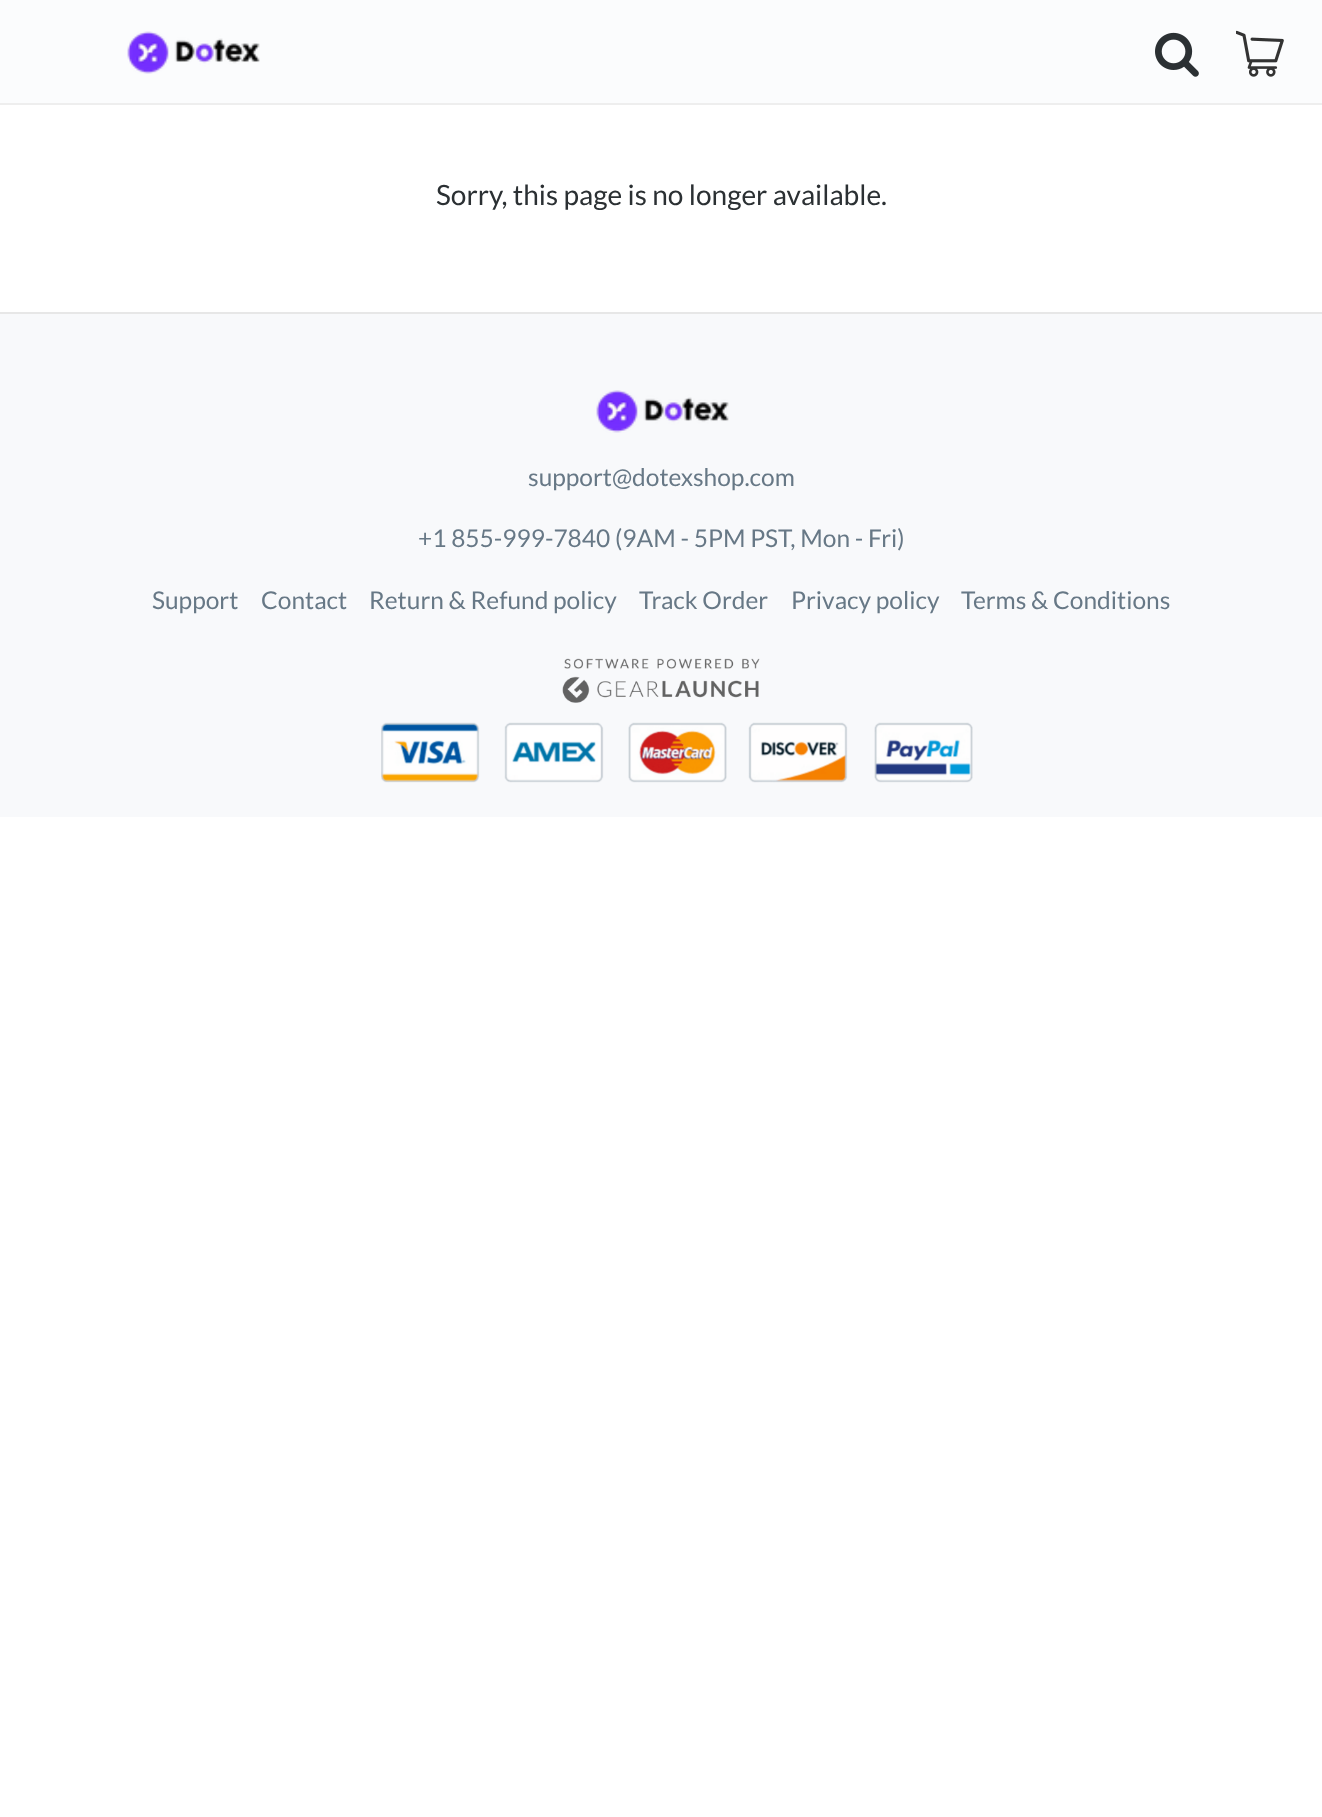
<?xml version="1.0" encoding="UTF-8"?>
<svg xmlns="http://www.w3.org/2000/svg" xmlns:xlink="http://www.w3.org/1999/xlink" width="1322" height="1817">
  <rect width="100%" height="100%" fill="#ffffff" />
  <rect width="1322" height="103" fill="#fbfcfd" />
  <rect y="103" width="1322" height="2" fill="#eeeeee" />
  <image x="127" y="31" width="133" height="43" xlink:href="image1.png" />
  <image x="1155" y="32" width="44" height="45" xlink:href="image2.png" />
  <image x="1236" y="30" width="48" height="47" xlink:href="image3.png" />
  <rect y="314" width="1322" height="503" fill="#f8f9fb" />
  <rect y="312" width="1322" height="2" fill="#e7e7e7" />
  <image x="596" y="390" width="133" height="43" xlink:href="image4.png" />
  <image x="562" y="658" width="198" height="45" xlink:href="image5.png" />
  <image x="381" y="722" width="592" height="61" xlink:href="image6.png" />
  <text x="436" y="205" style="font-family: Lato; font-size: 28px; fill: #2b3033">Sorry, this page is no longer available.</text>
  <text x="528" y="486" style="font-family: Lato; font-size: 24.5px; fill: #677886">support@dotexshop.com</text>
  <text x="418" y="547" style="font-family: Lato; font-size: 24.5px; fill: #677886">+1 855-999-7840 (9AM - 5PM PST, Mon - Fri)</text>
  <text x="152" y="609" style="font-family: Lato; font-size: 24.5px; fill: #677886">Support</text>
  <text x="261" y="609" style="font-family: Lato; font-size: 24.5px; fill: #677886">Contact</text>
  <text x="369" y="609" style="font-family: Lato; font-size: 24.5px; fill: #677886">Return &amp; Refund policy</text>
  <text x="639" y="609" style="font-family: Lato; font-size: 24.5px; fill: #677886">Track Order</text>
  <text x="791" y="609" style="font-family: Lato; font-size: 24.5px; fill: #677886">Privacy policy</text>
  <text x="961" y="609" style="font-family: Lato; font-size: 24.5px; fill: #677886">Terms &amp; Conditions</text>
</svg>
